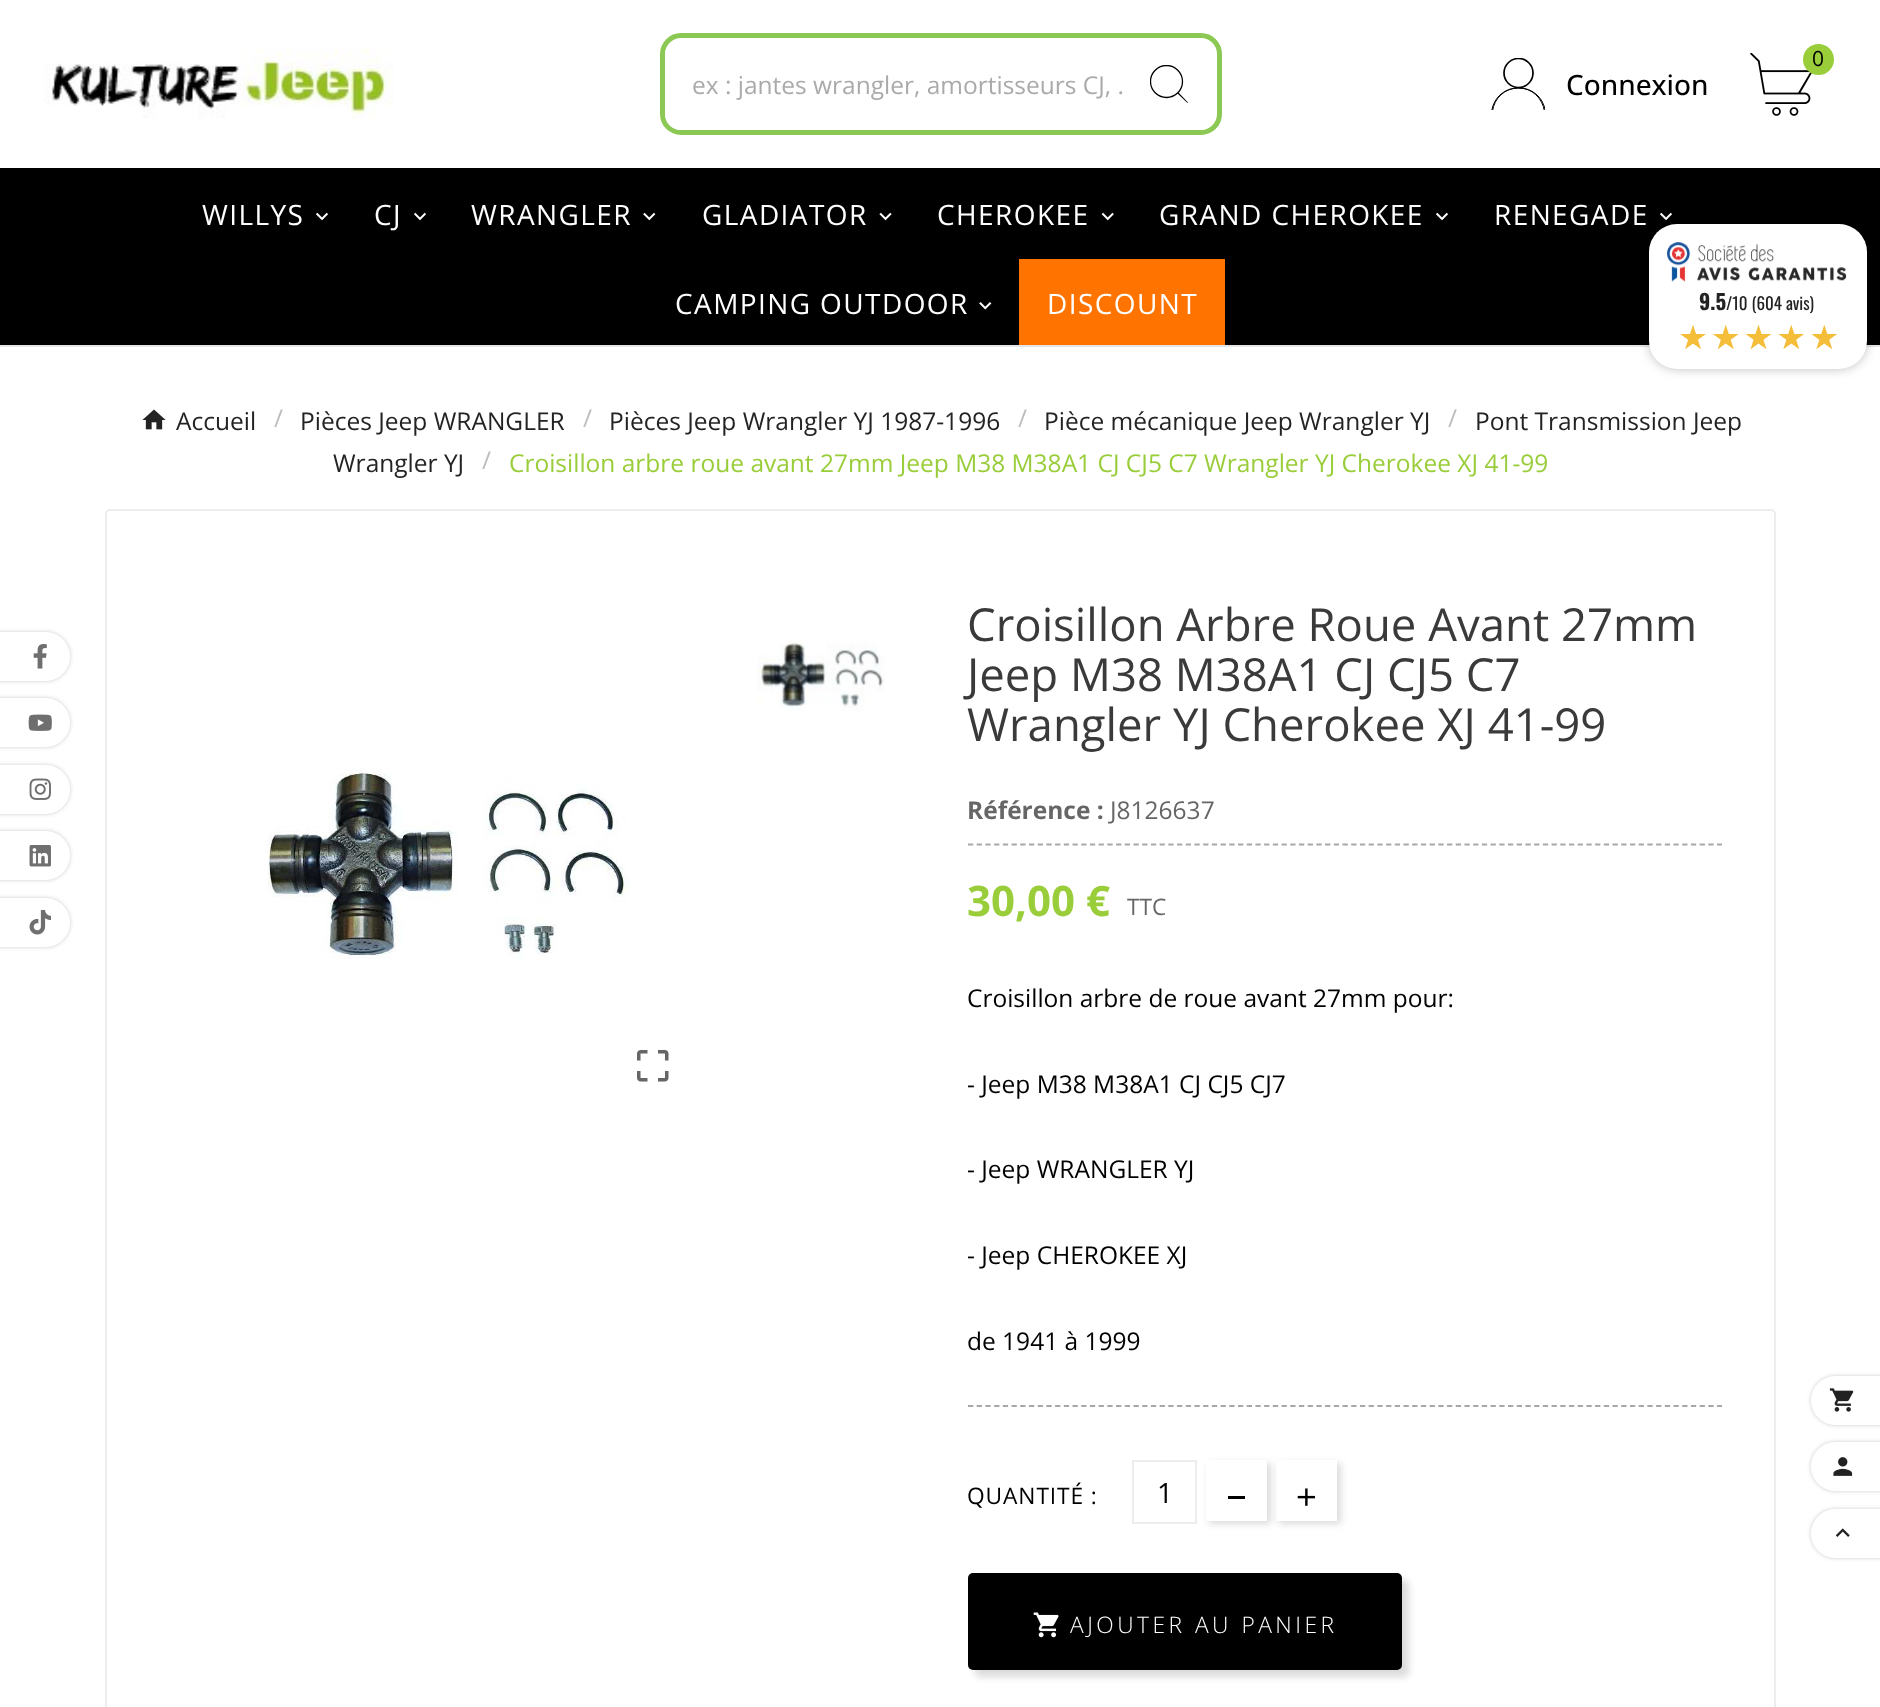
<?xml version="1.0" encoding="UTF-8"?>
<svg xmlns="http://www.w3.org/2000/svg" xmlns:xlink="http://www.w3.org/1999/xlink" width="1880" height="1707">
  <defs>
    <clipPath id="clip1"><rect x="1150" y="65" width="38" height="38" /></clipPath>
    <clipPath id="clip2"><rect x="1491" y="58" width="54" height="52" /></clipPath>
  </defs>
  <rect width="100%" height="100%" fill="#ffffff" />
  <rect y="345" width="1880" height="2" fill="#e5e5e5" />
  <image x="44" y="49" width="350" height="70" xlink:href="image1.png" />
  <rect x="662.5" y="35.5" width="557" height="97" rx="18.5" fill="none" stroke="#8bc954" stroke-width="5" />
  <path d="M 681 39 h 441 v 91 h -441 c -9 0 -16 -7 -16 -16 v -59 c 0 -9 7 -16 16 -16 z" fill="#ffffff" />
  <path d="M 1122 39 h 78 c 9 0 16 7 16 16 v 59 c 0 9 -7 16 -16 16 h -78 z" fill="#ffffff" />
  <path d="M 1187.5 103 l -10 -9.5 l 1 -1 l 9.5 10 z" fill="#000000" />
  <g clip-path="url(#clip1)">
    <circle cx="1166.5" cy="81.5" r="16" fill="none" stroke="#000000" stroke-width="1.3" />
  </g>
  <image x="1750" y="53" width="62" height="63" xlink:href="image2.png" />
  <circle cx="1818.5" cy="59.5" r="15.5" fill="#99cd39" />
  <g clip-path="url(#clip2)">
    <path d="M 1518.5 88 c 13.5 0 24 10 26 23.5 h 1 c -5 -31.5 -49 -31.5 -54 0 h 1 c 1.5 -13.5 12.5 -23.5 26 -23.5 z" fill="none" stroke="#000000" />
    <circle cx="1518.5" cy="73" r="14.5" fill="none" stroke="#000000" stroke-width="1.7" />
  </g>
  <rect y="168" width="1880" height="177" fill="#000000" />
  <image x="316" y="212" width="12" height="9" xlink:href="image3.png" />
  <image x="414" y="212" width="12" height="9" xlink:href="image3.png" />
  <image x="643" y="212" width="13" height="9" xlink:href="image4.png" />
  <image x="879" y="212" width="13" height="9" xlink:href="image5.png" />
  <image x="1101" y="212" width="13" height="9" xlink:href="image6.png" />
  <image x="1436" y="212" width="12" height="9" xlink:href="image3.png" />
  <image x="1660" y="212" width="12" height="9" xlink:href="image3.png" />
  <image x="979" y="302" width="13" height="8" xlink:href="image7.png" />
  <rect x="1019" y="259" width="206" height="86" fill="#ff7300" />
  <image x="142" y="409" width="24" height="21" xlink:href="image8.png" />
  <rect x="106" y="510" width="1669" height="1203" rx="4" fill="none" stroke="#ededed" stroke-width="2" />
  <image x="757" y="641" width="128" height="70" xlink:href="image9.png" />
  <image x="267" y="768" width="361" height="191" xlink:href="image10.png" />
  <image x="637" y="1050" width="32" height="32" xlink:href="image11.png" />
  <path d="M 968 844.5 h 754" fill="none" stroke="#a7a7a7" stroke-width="1.8" stroke-dasharray="5.25 3.46" />
  <path d="M 968 1406 h 754" fill="none" stroke="#a7a7a7" stroke-width="1.8" stroke-dasharray="5.25 3.46" />
  <rect x="1133" y="1461" width="63" height="62" fill="none" stroke="#ededed" stroke-width="2" />
  <rect x="1279" y="1463" width="62" height="61" fill="#000000" fill-opacity="0.14" filter="blur(3.5px)" />
  <rect x="1276" y="1460" width="61" height="61" fill="#ffffff" />
  <rect x="1209" y="1463" width="62" height="61" fill="#000000" fill-opacity="0.14" filter="blur(3.5px)" />
  <rect x="1206" y="1460" width="61" height="61" fill="#ffffff" />
  <rect x="1228" y="1496" width="17" height="3" fill="#000000" />
  <image x="1297" y="1488" width="19" height="18" xlink:href="image12.png" />
  <rect x="975" y="1580" width="434" height="97" rx="5" fill="#000000" fill-opacity="0.14" filter="blur(3.5px)" />
  <rect x="968" y="1573" width="434" height="97" rx="5" fill="#000000" />
  <image x="1033" y="1612" width="26" height="26" xlink:href="image13.png" />
  <rect x="-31" y="632" width="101" height="49" rx="24.5" fill="#000000" fill-opacity="0.2" filter="blur(2px)" />
  <path d="M -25 632 h 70.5 c 13.5 0 24.5 11 24.5 24.5 c 0 13.5 -11 24.5 -24.5 24.5 h -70.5 z" fill="#ffffff" />
  <image x="33" y="644" width="14" height="25" xlink:href="image14.png" />
  <rect x="-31" y="698" width="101" height="49" rx="24.5" fill="#000000" fill-opacity="0.2" filter="blur(2px)" />
  <path d="M -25 698 h 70.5 c 13.5 0 24.5 11 24.5 24.5 c 0 13.5 -11 24.5 -24.5 24.5 h -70.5 z" fill="#ffffff" />
  <image x="28" y="714" width="24" height="17" xlink:href="image15.png" />
  <rect x="-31" y="765" width="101" height="49" rx="24.5" fill="#000000" fill-opacity="0.2" filter="blur(2px)" />
  <path d="M -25 765 h 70.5 c 13.5 0 24.5 11 24.5 24.5 c 0 13.5 -11 24.5 -24.5 24.5 h -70.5 z" fill="#ffffff" />
  <image x="29" y="778" width="22" height="22" xlink:href="image16.png" />
  <rect x="-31" y="831" width="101" height="49" rx="24.5" fill="#000000" fill-opacity="0.2" filter="blur(2px)" />
  <path d="M -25 831 h 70.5 c 13.5 0 24.5 11 24.5 24.5 c 0 13.5 -11 24.5 -24.5 24.5 h -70.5 z" fill="#ffffff" />
  <image x="29" y="845" width="22" height="22" xlink:href="image17.png" />
  <rect x="-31" y="898" width="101" height="49" rx="24.5" fill="#000000" fill-opacity="0.2" filter="blur(2px)" />
  <path d="M -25 898 h 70.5 c 13.5 0 24.5 11 24.5 24.5 c 0 13.5 -11 24.5 -24.5 24.5 h -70.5 z" fill="#ffffff" />
  <image x="29" y="910" width="22" height="25" xlink:href="image18.png" />
  <rect x="1811" y="1376" width="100" height="49" rx="24.5" fill="#000000" fill-opacity="0.2" filter="blur(2px)" />
  <path d="M 1835.5 1376 h 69.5 v 49 h -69.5 c -13.5 0 -24.5 -11 -24.5 -24.5 c 0 -13.5 11 -24.5 24.5 -24.5 z" fill="#ffffff" />
  <image x="1829" y="1388" width="25" height="24" xlink:href="image19.png" />
  <rect x="1811" y="1442" width="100" height="49" rx="24.5" fill="#000000" fill-opacity="0.2" filter="blur(2px)" />
  <path d="M 1835.5 1442 h 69.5 v 49 h -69.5 c -13.5 0 -24.5 -11 -24.5 -24.5 c 0 -13.5 11 -24.5 24.5 -24.5 z" fill="#ffffff" />
  <image x="1833" y="1457" width="20" height="19" xlink:href="image20.png" />
  <rect x="1811" y="1509" width="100" height="49" rx="24.5" fill="#000000" fill-opacity="0.2" filter="blur(2px)" />
  <path d="M 1835.5 1509 h 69.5 v 49 h -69.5 c -13.5 0 -24.5 -11 -24.5 -24.5 c 0 -13.5 11 -24.5 24.5 -24.5 z" fill="#ffffff" />
  <image x="1835" y="1528" width="15" height="9" xlink:href="image21.png" />
  <rect x="1649" y="224" width="218" height="145" rx="28" fill="#000000" fill-opacity="0.25" filter="blur(5.5px)" />
  <rect x="1649" y="224" width="218" height="145" rx="28" fill="#ffffff" />
  <image x="1667" y="242" width="180" height="40" xlink:href="image22.png" />
  <text x="692" y="94" style="font-family: Open Sans; font-size: 24.5px; fill: #aaaaaa">ex : jantes wrangler, amortisseurs CJ, .</text>
  <text x="1812" y="66" style="font-family: Open Sans; font-size: 21px; fill: #000000">0</text>
  <text x="1566" y="95" style="font-family: Open Sans; font-size: 28px; font-weight: 500; fill: #000000">Connexion</text>
  <text x="202" y="225" style="font-family: Open Sans; font-size: 28px; letter-spacing: 1.4px; fill: #ffffff">WILLYS</text>
  <text x="374" y="225" style="font-family: Open Sans; font-size: 28px; letter-spacing: 1.4px; fill: #ffffff">CJ</text>
  <text x="471" y="225" style="font-family: Open Sans; font-size: 28px; letter-spacing: 1.4px; fill: #ffffff">WRANGLER</text>
  <text x="702" y="225" style="font-family: Open Sans; font-size: 28px; letter-spacing: 1.4px; fill: #ffffff">GLADIATOR</text>
  <text x="937" y="225" style="font-family: Open Sans; font-size: 28px; letter-spacing: 1.4px; fill: #ffffff">CHEROKEE</text>
  <text x="1159" y="225" style="font-family: Open Sans; font-size: 28px; letter-spacing: 1.4px; fill: #ffffff">GRAND CHEROKEE</text>
  <text x="1494" y="225" style="font-family: Open Sans; font-size: 28px; letter-spacing: 1.4px; fill: #ffffff">RENEGADE</text>
  <text x="675" y="314" style="font-family: Open Sans; font-size: 28px; letter-spacing: 1.4px; fill: #ffffff">CAMPING OUTDOOR</text>
  <text x="1047" y="314" style="font-family: Open Sans; font-size: 28px; letter-spacing: 1.4px; fill: #ffffff">DISCOUNT</text>
  <text x="176" y="430" style="font-family: Open Sans; font-size: 24.5px; fill: #232323">Accueil</text>
  <text x="274" y="427" style="font-family: Open Sans; font-size: 24.5px; fill: #bdbdbd">/</text>
  <text x="300" y="430" style="font-family: Open Sans; font-size: 24.5px; fill: #232323">Pièces Jeep WRANGLER</text>
  <text x="583" y="427" style="font-family: Open Sans; font-size: 24.5px; fill: #bdbdbd">/</text>
  <text x="609" y="430" style="font-family: Open Sans; font-size: 24.5px; fill: #232323">Pièces Jeep Wrangler YJ 1987-1996</text>
  <text x="1018" y="427" style="font-family: Open Sans; font-size: 24.5px; fill: #bdbdbd">/</text>
  <text x="1044" y="430" style="font-family: Open Sans; font-size: 24.5px; fill: #232323">Pièce mécanique Jeep Wrangler YJ</text>
  <text x="1448" y="427" style="font-family: Open Sans; font-size: 24.5px; fill: #bdbdbd">/</text>
  <text x="1475" y="430" style="font-family: Open Sans; font-size: 24.5px; fill: #232323">Pont Transmission Jeep</text>
  <text x="333" y="472" style="font-family: Open Sans; font-size: 24.5px; fill: #232323">Wrangler YJ</text>
  <text x="482" y="469" style="font-family: Open Sans; font-size: 24.5px; fill: #bdbdbd">/</text>
  <text x="509" y="472" style="font-family: Open Sans; font-size: 24.5px; fill: #99cd39">Croisillon arbre roue avant 27mm Jeep M38 M38A1 CJ CJ5 C7 Wrangler YJ Cherokee XJ 41-99</text>
  <text x="967" y="641" style="font-family: Open Sans; font-size: 45.5px; fill: #3a3a3a">Croisillon Arbre Roue Avant 27mm</text>
  <text x="967" y="691" style="font-family: Open Sans; font-size: 45.5px; fill: #3a3a3a">Jeep M38 M38A1 CJ CJ5 C7</text>
  <text x="967" y="741" style="font-family: Open Sans; font-size: 45.5px; fill: #3a3a3a">Wrangler YJ Cherokee XJ 41-99</text>
  <text x="967" y="819" style="font-family: Open Sans; font-size: 24.5px; font-weight: bold; fill: #666666">Référence :</text>
  <text x="1110" y="819" style="font-family: Open Sans; font-size: 24.5px; fill: #666666">J8126637</text>
  <text x="967" y="916" style="font-family: Open Sans; font-size: 42px; font-weight: bold; fill: #99cd39">30,00 €</text>
  <text x="1127" y="915" style="font-family: Open Sans; font-size: 22.75px; fill: #666666">TTC</text>
  <text x="967" y="1007" style="font-family: Open Sans; font-size: 24.5px; fill: #000000">Croisillon arbre de roue avant 27mm pour:</text>
  <text x="967" y="1093" style="font-family: Open Sans; font-size: 24.5px; fill: #000000">- Jeep M38 M38A1 CJ CJ5 CJ7</text>
  <text x="967" y="1178" style="font-family: Open Sans; font-size: 24.5px; fill: #000000">- Jeep WRANGLER YJ</text>
  <text x="967" y="1264" style="font-family: Open Sans; font-size: 24.5px; fill: #000000">- Jeep CHEROKEE XJ</text>
  <text x="967" y="1350" style="font-family: Open Sans; font-size: 24.5px; fill: #000000">de 1941 à 1999</text>
  <text x="967" y="1504" style="font-family: Open Sans; font-size: 22.75px; letter-spacing: 0.9px; fill: #000000">QUANTITÉ :</text>
  <text x="1157" y="1503" style="font-family: Open Sans; font-size: 28px; fill: #000000">1</text>
  <text x="1070" y="1633" style="font-family: Open Sans; font-size: 22.75px; font-weight: 300; letter-spacing: 3.5px; fill: #ffffff">AJOUTER AU PANIER</text>
  <text x="1699" y="310" style="font-family: Oswald; font-size: 21px; font-weight: bold; fill: #232323">9.5</text>
  <text x="1726" y="310" style="font-family: Oswald; font-size: 17px; fill: #232323">/10 (604 avis)</text>
  <text x="1678" y="349" style="font-family: DejaVu Sans; font-size: 33.5px; letter-spacing: 2.75px; fill: #f4bd3a">★★★★★</text>
</svg>
